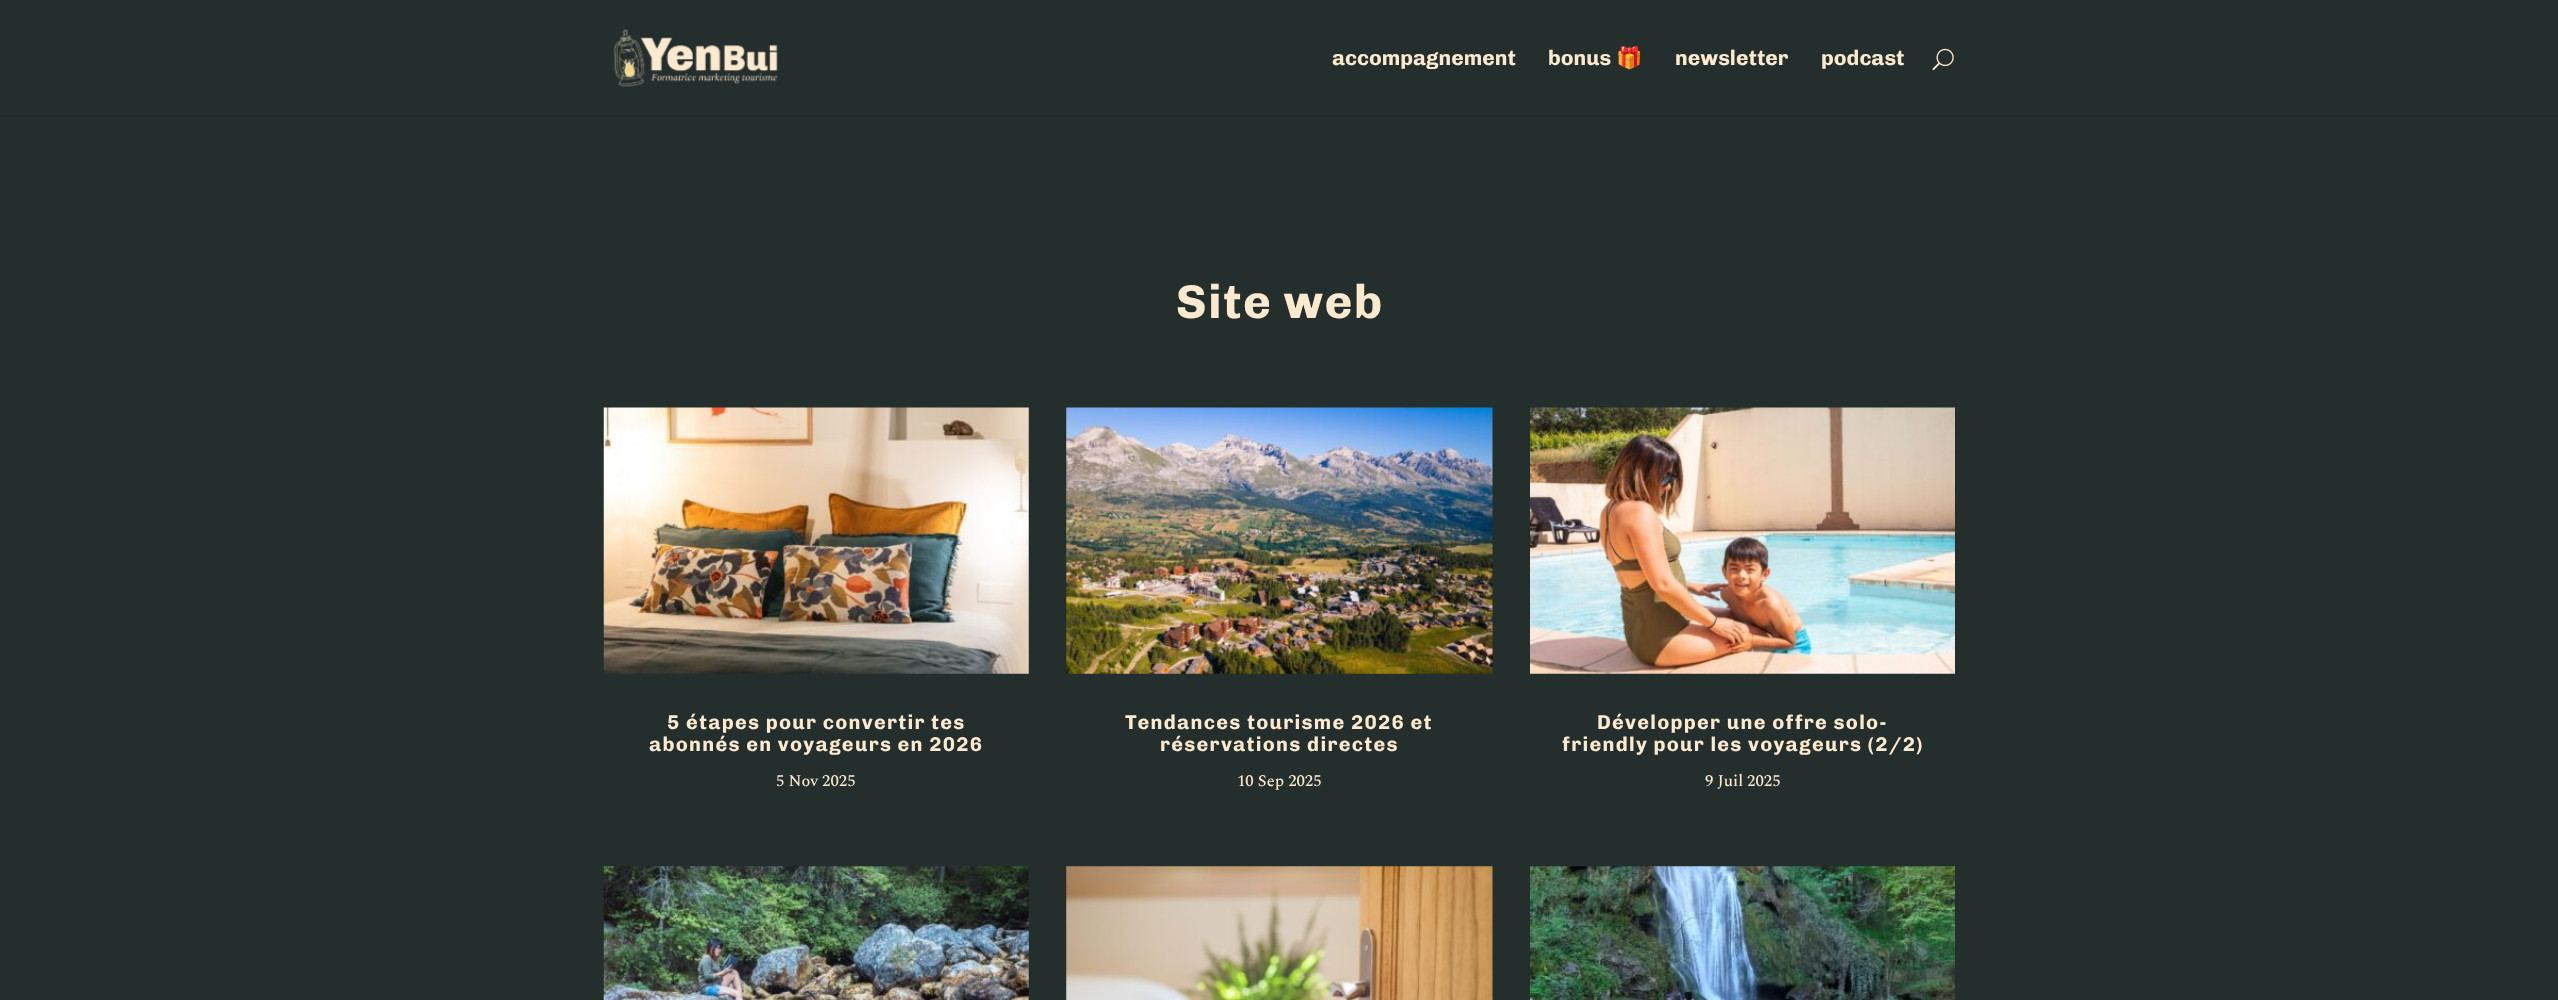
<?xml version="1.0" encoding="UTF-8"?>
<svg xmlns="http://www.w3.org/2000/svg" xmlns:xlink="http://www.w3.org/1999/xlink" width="2558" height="1000">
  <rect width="100%" height="100%" fill="#242e2d" />
  <path d="M 0 115 v 1 h 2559 v -115 v 114 z" fill="#202929" />
  <image x="613" y="29" width="165" height="58" xlink:href="image1.png" />
  <image x="1932" y="48" width="22" height="23" xlink:href="image2.png" />
  <image x="603" y="407" width="426" height="267" xlink:href="image3.png" />
  <image x="603" y="866" width="426" height="134" xlink:href="image4.png" />
  <image x="1066" y="407" width="427" height="267" xlink:href="image5.png" />
  <image x="1066" y="866" width="427" height="134" xlink:href="image6.png" />
  <image x="1530" y="407" width="425" height="267" xlink:href="image7.png" />
  <image x="1530" y="866" width="425" height="134" xlink:href="image8.png" />
  <text x="1332" y="65" style="font-family: Chivo; font-size: 21.25px; font-weight: 500; fill: #fcead0">accompagnement</text>
  <text x="1548" y="65" style="font-family: Chivo; font-size: 21.25px; font-weight: 500; fill: #fcead0">bonus</text>
  <text x="1616" y="65" style="font-family: Noto Color Emoji; font-size: 21.25px; font-weight: bold; fill: #fcead0">🎁</text>
  <text x="1675" y="65" style="font-family: Chivo; font-size: 21.25px; font-weight: 500; fill: #fcead0">newsletter</text>
  <text x="1821" y="65" style="font-family: Chivo; font-size: 21.25px; font-weight: 500; fill: #fcead0">podcast</text>
  <text x="1176" y="318" style="font-family: Chivo; font-size: 47.5px; font-weight: 500; letter-spacing: 1.25px; fill: #fcead0">Site web</text>
  <text x="667" y="729" style="font-family: Chivo; font-size: 20px; font-weight: 500; letter-spacing: 1.25px; fill: #fcead0">5 étapes pour convertir tes</text>
  <text x="649" y="751" style="font-family: Chivo; font-size: 20px; font-weight: 500; letter-spacing: 1.25px; fill: #fcead0">abonnés en voyageurs en 2026</text>
  <text x="776" y="786" style="font-family: Spectral; font-size: 16.25px; font-weight: 500; fill: #fcead0">5 Nov 2025</text>
  <text x="1125" y="729" style="font-family: Chivo; font-size: 20px; font-weight: 500; letter-spacing: 1.25px; fill: #fcead0">Tendances tourisme 2026 et</text>
  <text x="1160" y="751" style="font-family: Chivo; font-size: 20px; font-weight: 500; letter-spacing: 1.25px; fill: #fcead0">réservations directes</text>
  <text x="1237" y="786" style="font-family: Spectral; font-size: 16.25px; font-weight: 500; fill: #fcead0">10 Sep 2025</text>
  <text x="1597" y="729" style="font-family: Chivo; font-size: 20px; font-weight: 500; letter-spacing: 1.25px; fill: #fcead0">Développer une offre solo-</text>
  <text x="1562" y="751" style="font-family: Chivo; font-size: 20px; font-weight: 500; letter-spacing: 1.25px; fill: #fcead0">friendly pour les voyageurs (2/2)</text>
  <text x="1705" y="786" style="font-family: Spectral; font-size: 16.25px; font-weight: 500; fill: #fcead0">9 Juil 2025</text>
</svg>
